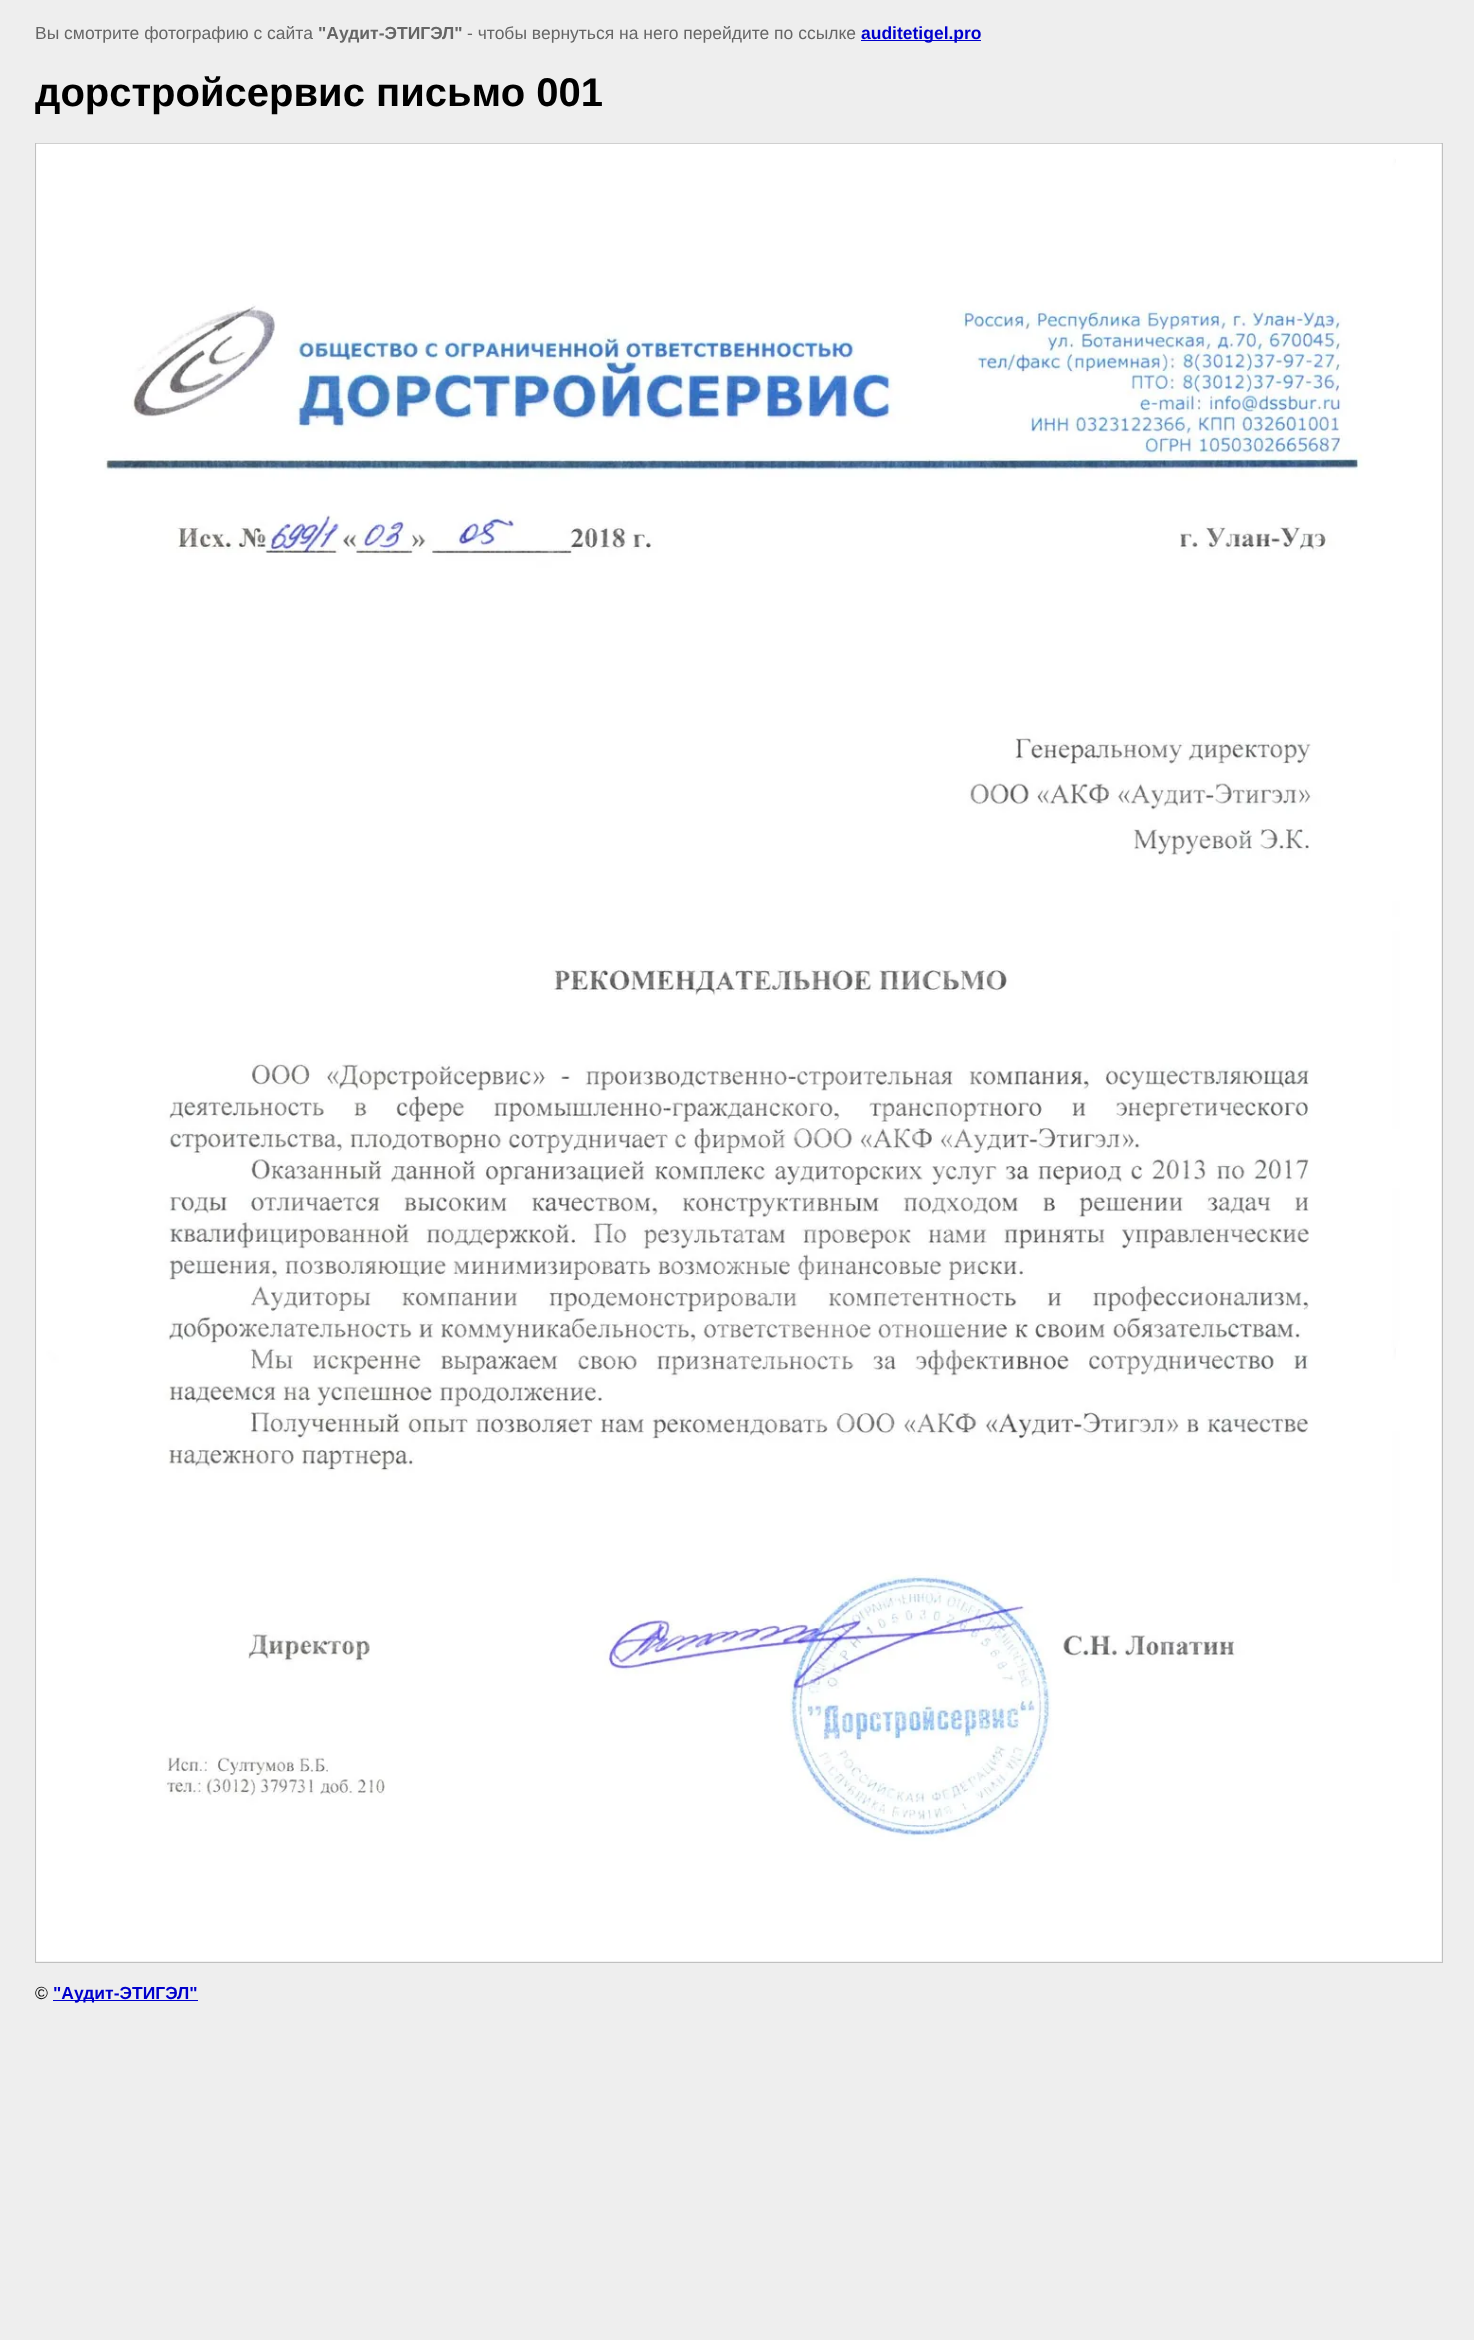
<?xml version="1.0" encoding="UTF-8"?>
<svg xmlns="http://www.w3.org/2000/svg" xmlns:xlink="http://www.w3.org/1999/xlink" width="1474" height="2340">
  <rect width="100%" height="100%" fill="#eeeeee" />
  <rect x="861" y="40" width="120" height="1" fill="#0000cc" />
  <rect x="35.5" y="143.5" width="1407" height="1819" fill="none" stroke="#c0c0c0" />
  <image x="36" y="143" width="1406" height="1819" xlink:href="image1.png" />
  <rect x="53" y="2000" width="145" height="1" fill="#0000cc" />
  <text x="35" y="39" style="font-family: Liberation Sans; font-size: 17.5px; fill: #666666">Вы смотрите фотографию с сайта</text>
  <text x="318" y="39" style="font-family: Liberation Sans; font-size: 17.5px; font-weight: bold; fill: #666666">"Аудит-ЭТИГЭЛ"</text>
  <text x="467" y="39" style="font-family: Liberation Sans; font-size: 17.5px; fill: #666666">- чтобы вернуться на него перейдите по ссылке</text>
  <text x="861" y="39" style="font-family: Liberation Sans; font-size: 17.5px; font-weight: bold; fill: #0000cc">auditetigel.pro</text>
  <text x="35" y="106" style="font-family: Liberation Sans; font-size: 40px; font-weight: bold; fill: #000000">дорстройсервис письмо 001</text>
  <text x="35" y="1999" style="font-family: Liberation Sans; font-size: 17.5px; fill: #000000">©</text>
  <text x="53" y="1999" style="font-family: Liberation Sans; font-size: 17.5px; font-weight: bold; fill: #0000cc">"Аудит-ЭТИГЭЛ"</text>
</svg>
